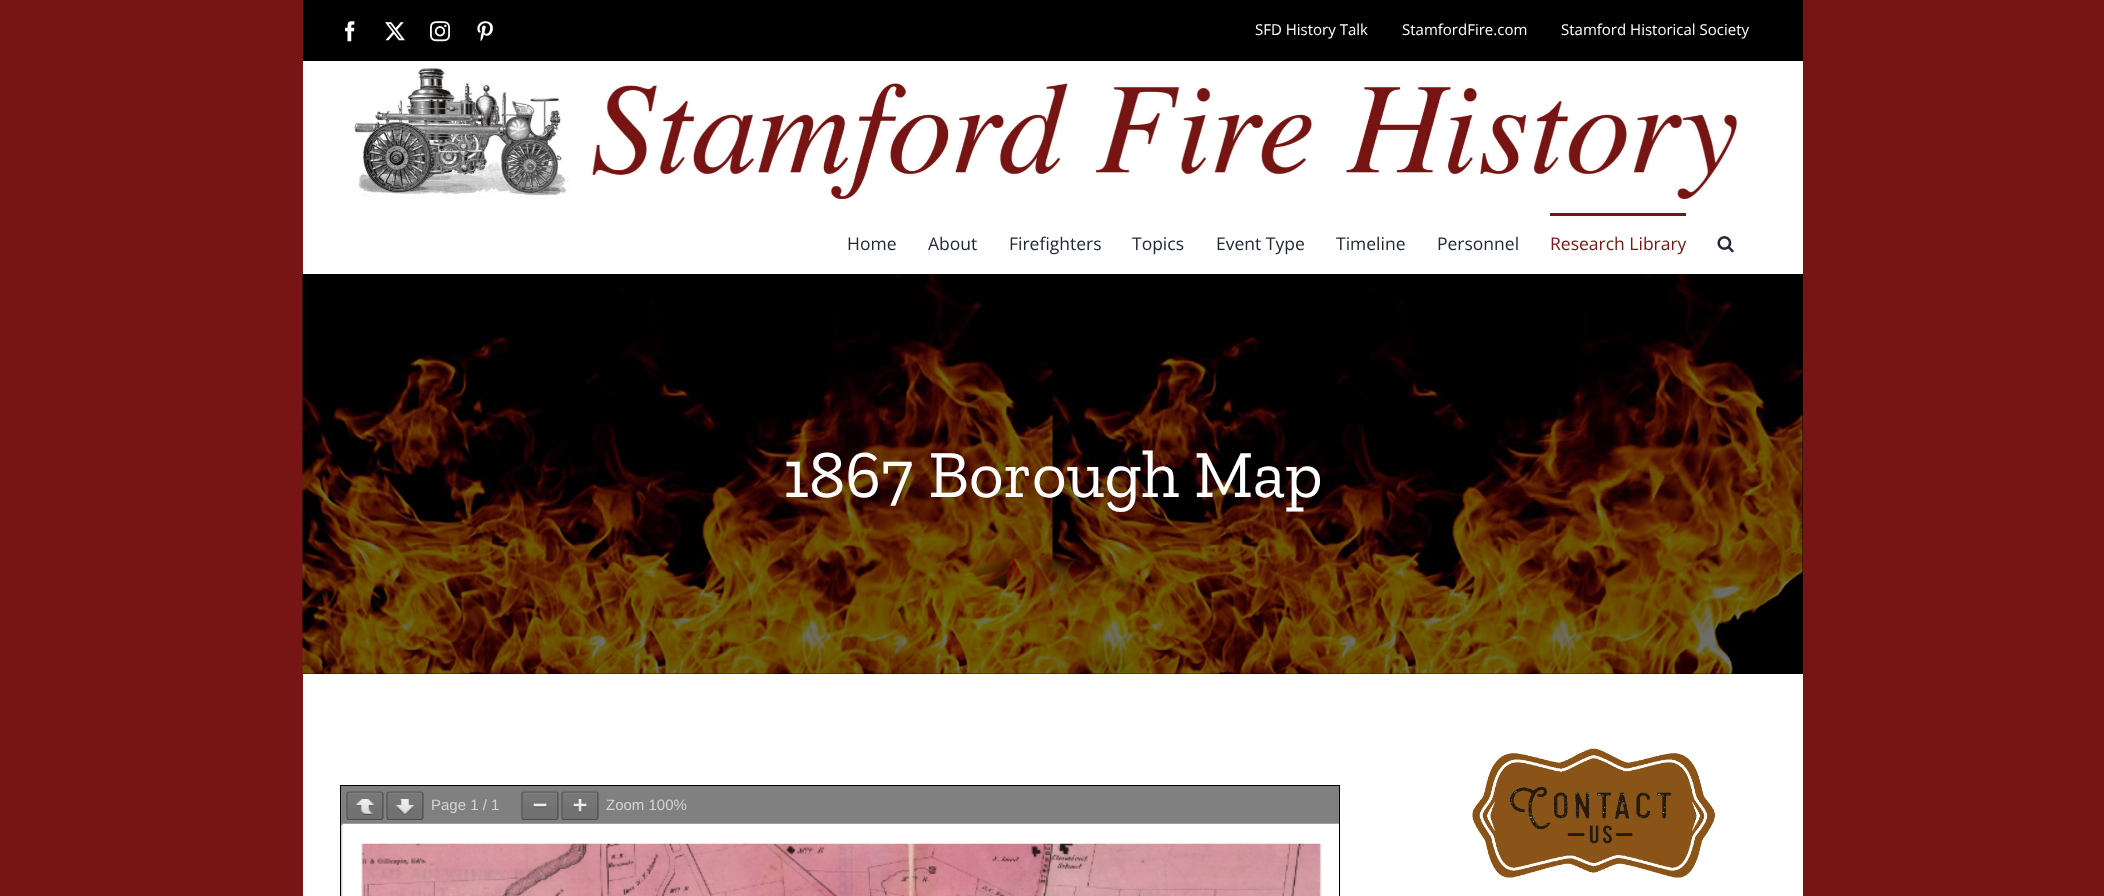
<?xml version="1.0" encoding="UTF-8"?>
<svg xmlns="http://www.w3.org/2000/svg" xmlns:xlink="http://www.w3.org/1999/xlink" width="2104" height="896">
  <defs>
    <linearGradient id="g1" gradientUnits="userSpaceOnUse" x1="365" y1="793" x2="365" y2="819"><stop offset="0" stop-color="#ffffff" stop-opacity="0.05" /><stop offset="1" stop-color="#ffffff" stop-opacity="0" /></linearGradient>
    <linearGradient id="g2" gradientUnits="userSpaceOnUse" x1="405" y1="793" x2="405" y2="819"><stop offset="0" stop-color="#ffffff" stop-opacity="0.05" /><stop offset="1" stop-color="#ffffff" stop-opacity="0" /></linearGradient>
    <linearGradient id="g3" gradientUnits="userSpaceOnUse" x1="540" y1="793" x2="540" y2="819"><stop offset="0" stop-color="#ffffff" stop-opacity="0.05" /><stop offset="1" stop-color="#ffffff" stop-opacity="0" /></linearGradient>
    <linearGradient id="g4" gradientUnits="userSpaceOnUse" x1="580" y1="793" x2="580" y2="819"><stop offset="0" stop-color="#ffffff" stop-opacity="0.05" /><stop offset="1" stop-color="#ffffff" stop-opacity="0" /></linearGradient>
  </defs>
  <rect width="100%" height="100%" fill="#761513" />
  <rect x="303" width="1500" height="61" fill="#000000" />
  <image x="345" y="21" width="10" height="21" xlink:href="image1.png" />
  <image x="385" y="22" width="20" height="19" xlink:href="image2.png" />
  <image x="430" y="21" width="20" height="21" xlink:href="image3.png" />
  <image x="477" y="21" width="16" height="21" xlink:href="image4.png" />
  <rect x="303" y="274" width="1500" height="400" fill="#000000" />
  <image x="302" y="273" width="1501" height="401" xlink:href="image7.png" />
  <rect x="303" y="61" width="1500" height="213" fill="#ffffff" />
  <image x="353" y="66" width="1385" height="133" xlink:href="image5.png" />
  <rect x="1550" y="213" width="136" height="3" fill="#761513" />
  <image x="1717" y="236" width="17" height="17" xlink:href="image6.png" />
  <rect x="303" y="674" width="1500" height="222" fill="#ffffff" />
  <rect x="341" y="825" width="2" height="71" fill="#d3d3d3" />
  <rect x="340.5" y="785.5" width="999" height="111" fill="none" stroke="#000000" />
  <rect x="341" y="786" width="998" height="39" fill="#808080" />
  <path d="M 346 794.5 v 16.5 c 0 10 -2 10 8 10 h 22 c 10 0 8 0 8 -10 v -16.5 v 23 c 0 1.5 -1.5 2.5 -3 2.5 h -32 c -1.5 0 -3 -1 -3 -2.5 z" fill="#868686" />
  <rect x="348" y="793" width="35" height="26" rx="1" fill="#717171" />
  <rect x="348" y="793" width="35" height="15" fill="url(#g1)" />
  <path d="M 349 794 h 32 c 1 0 1 0 1 1 v 24 c 0.5 0 1 -0.5 1 -1 v -24 c 0 -0.5 -0.5 -1 -1 -1 h -33 c -0.5 0 -1 0.5 -1 1 v 1 c 0 -1 0 -1 1 -1 z" fill="#ffffff" fill-opacity="0.05" />
  <path d="M 347.5 792.5 l 1 -0.5 h 33 l 1 0.5" fill="none" stroke="#575757" stroke-width="1.2" />
  <path d="M 382.5 792.5 l 0.5 1.5 v 23.5 l -0.5 1.5" fill="none" stroke="#000000" stroke-opacity="0.38" stroke-width="1.2" />
  <path d="M 382.5 819 l -1 0.5 h -33 l -1 -0.5" fill="none" stroke="#4a4a4a" stroke-width="1.2" />
  <path d="M 347.5 819 l -0.5 -1.5 v -23.5 l 0.5 -1.5" fill="none" stroke="#000000" stroke-opacity="0.38" stroke-width="1.2" />
  <image x="356" y="799" width="18" height="16" xlink:href="image8.png" />
  <path d="M 386 794.5 v 16.5 c 0 10 -2 10 8 10 h 22 c 10 0 8 0 8 -10 v -16.5 v 23 c 0 1.5 -1.5 2.5 -3 2.5 h -32 c -1.5 0 -3 -1 -3 -2.5 z" fill="#868686" />
  <rect x="388" y="793" width="35" height="26" rx="1" fill="#717171" />
  <rect x="388" y="793" width="35" height="15" fill="url(#g2)" />
  <path d="M 389 794 h 32 c 1 0 1 0 1 1 v 24 c 0.5 0 1 -0.5 1 -1 v -24 c 0 -0.5 -0.5 -1 -1 -1 h -33 c -0.5 0 -1 0.5 -1 1 v 1 c 0 -1 0 -1 1 -1 z" fill="#ffffff" fill-opacity="0.05" />
  <path d="M 387.5 792.5 l 1 -0.5 h 33 l 1 0.5" fill="none" stroke="#575757" stroke-width="1.2" />
  <path d="M 422.5 792.5 l 0.5 1.5 v 23.5 l -0.5 1.5" fill="none" stroke="#000000" stroke-opacity="0.38" stroke-width="1.2" />
  <path d="M 422.5 819 l -1 0.5 h -33 l -1 -0.5" fill="none" stroke="#4a4a4a" stroke-width="1.2" />
  <path d="M 387.5 819 l -0.5 -1.5 v -23.5 l 0.5 -1.5" fill="none" stroke="#000000" stroke-opacity="0.38" stroke-width="1.2" />
  <image x="396" y="799" width="18" height="16" xlink:href="image9.png" />
  <path d="M 521 794.5 v 16.5 c 0 10 -2 10 8 10 h 22 c 10 0 8 0 8 -10 v -16.5 v 23 c 0 1.5 -1.5 2.5 -3 2.5 h -32 c -1.5 0 -3 -1 -3 -2.5 z" fill="#868686" />
  <rect x="523" y="793" width="35" height="26" rx="1" fill="#717171" />
  <rect x="523" y="793" width="35" height="15" fill="url(#g3)" />
  <path d="M 524 794 h 33.5 l 0.5 1 c 0 -3.5 -3 -2 -6.5 -2 h -22 c -2 0 -6.5 -1 -6.5 1 z" fill="#7f7f7f" />
  <path d="M 522.5 792.5 l 1 -0.5 h 33 l 1 0.5" fill="none" stroke="#575757" stroke-width="1.2" />
  <path d="M 557.5 792.5 l 0.5 1.5 v 23.5 l -0.5 1.5" fill="none" stroke="#000000" stroke-opacity="0.38" stroke-width="1.2" />
  <path d="M 557.5 819 l -1 0.5 h -33 l -1 -0.5" fill="none" stroke="#4a4a4a" stroke-width="1.2" />
  <path d="M 522.5 819 l -0.5 -1.5 v -23.5 l 0.5 -1.5" fill="none" stroke="#000000" stroke-opacity="0.38" stroke-width="1.2" />
  <image x="533" y="803" width="14" height="5" xlink:href="image10.png" />
  <path d="M 561 794.5 v 16.5 c 0 10 -2 10 8 10 h 22 c 10 0 8 0 8 -10 v -16.5 v 23 c 0 1.5 -1.5 2.5 -3 2.5 h -32 c -1.5 0 -3 -1 -3 -2.5 z" fill="#868686" />
  <rect x="563" y="793" width="35" height="26" rx="1" fill="#717171" />
  <rect x="563" y="793" width="35" height="15" fill="url(#g4)" />
  <path d="M 564 794 h 33.5 l 0.5 1 c 0 -3.5 -3 -2 -6.5 -2 h -22 c -2 0 -6.5 -1 -6.5 1 z" fill="#7f7f7f" />
  <path d="M 562.5 792.5 l 1 -0.5 h 33 l 1 0.5" fill="none" stroke="#575757" stroke-width="1.2" />
  <path d="M 597.5 792.5 l 0.5 1.5 v 23.5 l -0.5 1.5" fill="none" stroke="#000000" stroke-opacity="0.38" stroke-width="1.2" />
  <path d="M 597.5 819 l -1 0.5 h -33 l -1 -0.5" fill="none" stroke="#4a4a4a" stroke-width="1.2" />
  <path d="M 562.5 819 l -0.5 -1.5 v -23.5 l 0.5 -1.5" fill="none" stroke="#000000" stroke-opacity="0.38" stroke-width="1.2" />
  <image x="573" y="799" width="14" height="14" xlink:href="image11.png" />
  <image x="342" y="823" width="997" height="73" xlink:href="image12.png" />
  <image x="1472" y="748" width="243" height="130" xlink:href="image13.png" />
  <text x="1255" y="35" style="font-family: Open Sans; font-size: 15px; fill: #ffffff">SFD History Talk</text>
  <text x="1402" y="35" style="font-family: Open Sans; font-size: 15px; fill: #ffffff">StamfordFire.com</text>
  <text x="1561" y="35" style="font-family: Open Sans; font-size: 15px; fill: #ffffff">Stamford Historical Society</text>
  <text x="847" y="250" style="font-family: Open Sans; font-size: 17.5px; fill: #212934">Home</text>
  <text x="928" y="250" style="font-family: Open Sans; font-size: 17.5px; fill: #212934">About</text>
  <text x="1009" y="250" style="font-family: Open Sans; font-size: 17.5px; fill: #212934">Firefighters</text>
  <text x="1132" y="250" style="font-family: Open Sans; font-size: 17.5px; fill: #212934">Topics</text>
  <text x="1216" y="250" style="font-family: Open Sans; font-size: 17.5px; fill: #212934">Event Type</text>
  <text x="1336" y="250" style="font-family: Open Sans; font-size: 17.5px; fill: #212934">Timeline</text>
  <text x="1437" y="250" style="font-family: Open Sans; font-size: 17.5px; fill: #212934">Personnel</text>
  <text x="1550" y="250" style="font-family: Open Sans; font-size: 17.5px; fill: #761513">Research Library</text>
  <text x="783" y="497" style="font-family: Zilla Slab; font-size: 67.5px; fill: #ffffff">1867 Borough Map</text>
  <text x="431" y="810" style="font-family: Liberation Sans; font-size: 15px; fill: #d3d3d3">Page 1 / 1</text>
  <text x="606" y="810" style="font-family: Liberation Sans; font-size: 15px; fill: #d3d3d3">Zoom 100%</text>
</svg>
